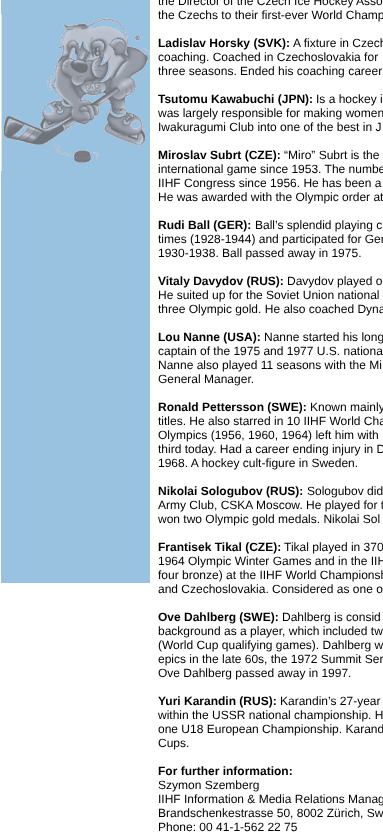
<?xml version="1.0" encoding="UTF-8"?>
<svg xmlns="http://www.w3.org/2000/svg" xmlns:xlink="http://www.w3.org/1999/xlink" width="383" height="835">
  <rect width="100%" height="100%" fill="#ffffff" />
  <rect x="1" width="149" height="583" fill="#99c2e1" />
  <rect width="1" height="583" fill="#fcfefc" />
  <image x="1" y="14" width="149" height="157" xlink:href="image1.png" />
  <text x="158" y="5" style="font-family: Liberation Sans; font-size: 12px; fill: #000000">the Director of the Czech Ice Hockey Asso</text>
  <text x="158" y="19" style="font-family: Liberation Sans; font-size: 12px; fill: #000000">the Czechs to their first-ever World Champ</text>
  <text x="158" y="47" style="font-family: Liberation Sans; font-size: 12px; font-weight: bold; fill: #000000">Ladislav Horsky (SVK):</text>
  <text x="293" y="47" style="font-family: Liberation Sans; font-size: 12px; fill: #000000">A fixture in Czech</text>
  <text x="158" y="61" style="font-family: Liberation Sans; font-size: 12px; fill: #000000">coaching. Coached in Czechoslovakia for</text>
  <text x="158" y="75" style="font-family: Liberation Sans; font-size: 12px; fill: #000000">three seasons. Ended his coaching career</text>
  <text x="158" y="103" style="font-family: Liberation Sans; font-size: 12px; font-weight: bold; fill: #000000">Tsutomu Kawabuchi (JPN):</text>
  <text x="316" y="103" style="font-family: Liberation Sans; font-size: 12px; fill: #000000">Is a hockey i</text>
  <text x="158" y="117" style="font-family: Liberation Sans; font-size: 12px; fill: #000000">was largely responsible for making women</text>
  <text x="158" y="131" style="font-family: Liberation Sans; font-size: 12px; fill: #000000">Iwakuragumi Club into one of the best in J</text>
  <text x="158" y="159" style="font-family: Liberation Sans; font-size: 12px; font-weight: bold; fill: #000000">Miroslav Subrt (CZE):</text>
  <text x="284" y="159" style="font-family: Liberation Sans; font-size: 12px; fill: #000000">“Miro” Subrt is the</text>
  <text x="158" y="173" style="font-family: Liberation Sans; font-size: 12px; fill: #000000">international game since 1953. The numbe</text>
  <text x="158" y="187" style="font-family: Liberation Sans; font-size: 12px; fill: #000000">IIHF Congress since 1956. He has been a</text>
  <text x="158" y="201" style="font-family: Liberation Sans; font-size: 12px; fill: #000000">He was awarded with the Olympic order at</text>
  <text x="158" y="229" style="font-family: Liberation Sans; font-size: 12px; font-weight: bold; fill: #000000">Rudi Ball (GER):</text>
  <text x="255" y="229" style="font-family: Liberation Sans; font-size: 12px; fill: #000000">Ball’s splendid playing c</text>
  <text x="158" y="243" style="font-family: Liberation Sans; font-size: 12px; fill: #000000">times (1928-1944) and participated for Ger</text>
  <text x="158" y="257" style="font-family: Liberation Sans; font-size: 12px; fill: #000000">1930-1938. Ball passed away in 1975.</text>
  <text x="158" y="285" style="font-family: Liberation Sans; font-size: 12px; font-weight: bold; fill: #000000">Vitaly Davydov (RUS):</text>
  <text x="287" y="285" style="font-family: Liberation Sans; font-size: 12px; fill: #000000">Davydov played o</text>
  <text x="158" y="299" style="font-family: Liberation Sans; font-size: 12px; fill: #000000">He suited up for the Soviet Union national</text>
  <text x="158" y="313" style="font-family: Liberation Sans; font-size: 12px; fill: #000000">three Olympic gold. He also coached Dyna</text>
  <text x="158" y="341" style="font-family: Liberation Sans; font-size: 12px; font-weight: bold; fill: #000000">Lou Nanne (USA):</text>
  <text x="264" y="341" style="font-family: Liberation Sans; font-size: 12px; fill: #000000">Nanne started his long</text>
  <text x="158" y="355" style="font-family: Liberation Sans; font-size: 12px; fill: #000000">captain of the 1975 and 1977 U.S. nationa</text>
  <text x="158" y="369" style="font-family: Liberation Sans; font-size: 12px; fill: #000000">Nanne also played 11 seasons with the Mi</text>
  <text x="158" y="383" style="font-family: Liberation Sans; font-size: 12px; fill: #000000">General Manager.</text>
  <text x="158" y="411" style="font-family: Liberation Sans; font-size: 12px; font-weight: bold; fill: #000000">Ronald Pettersson (SWE):</text>
  <text x="310" y="411" style="font-family: Liberation Sans; font-size: 12px; fill: #000000">Known mainly</text>
  <text x="158" y="425" style="font-family: Liberation Sans; font-size: 12px; fill: #000000">titles. He also starred in 10 IIHF World Cha</text>
  <text x="158" y="439" style="font-family: Liberation Sans; font-size: 12px; fill: #000000">Olympics (1956, 1960, 1964) left him with</text>
  <text x="158" y="453" style="font-family: Liberation Sans; font-size: 12px; fill: #000000">third today. Had a career ending injury in D</text>
  <text x="158" y="467" style="font-family: Liberation Sans; font-size: 12px; fill: #000000">1968. A hockey cult-figure in Sweden.</text>
  <text x="158" y="495" style="font-family: Liberation Sans; font-size: 12px; font-weight: bold; fill: #000000">Nikolai Sologubov (RUS):</text>
  <text x="307" y="495" style="font-family: Liberation Sans; font-size: 12px; fill: #000000">Sologubov did</text>
  <text x="158" y="509" style="font-family: Liberation Sans; font-size: 12px; fill: #000000">Army Club, CSKA Moscow. He played for t</text>
  <text x="158" y="523" style="font-family: Liberation Sans; font-size: 12px; fill: #000000">won two Olympic gold medals. Nikolai Sol</text>
  <text x="158" y="551" style="font-family: Liberation Sans; font-size: 12px; font-weight: bold; fill: #000000">Frantisek Tikal (CZE):</text>
  <text x="284" y="551" style="font-family: Liberation Sans; font-size: 12px; fill: #000000">Tikal played in 370</text>
  <text x="158" y="565" style="font-family: Liberation Sans; font-size: 12px; fill: #000000">1964 Olympic Winter Games and in the IIH</text>
  <text x="158" y="579" style="font-family: Liberation Sans; font-size: 12px; fill: #000000">four bronze) at the IIHF World Championsh</text>
  <text x="158" y="593" style="font-family: Liberation Sans; font-size: 12px; fill: #000000">and Czechoslovakia. Considered as one o</text>
  <text x="158" y="621" style="font-family: Liberation Sans; font-size: 12px; font-weight: bold; fill: #000000">Ove Dahlberg (SWE):</text>
  <text x="282" y="621" style="font-family: Liberation Sans; font-size: 12px; fill: #000000">Dahlberg is consid</text>
  <text x="158" y="635" style="font-family: Liberation Sans; font-size: 12px; fill: #000000">background as a player, which included tw</text>
  <text x="158" y="649" style="font-family: Liberation Sans; font-size: 12px; fill: #000000">(World Cup qualifying games). Dahlberg w</text>
  <text x="158" y="663" style="font-family: Liberation Sans; font-size: 12px; fill: #000000">epics in the late 60s, the 1972 Summit Ser</text>
  <text x="158" y="677" style="font-family: Liberation Sans; font-size: 12px; fill: #000000">Ove Dahlberg passed away in 1997.</text>
  <text x="158" y="705" style="font-family: Liberation Sans; font-size: 12px; font-weight: bold; fill: #000000">Yuri Karandin (RUS):</text>
  <text x="280" y="705" style="font-family: Liberation Sans; font-size: 12px; fill: #000000">Karandin’s 27-year</text>
  <text x="158" y="719" style="font-family: Liberation Sans; font-size: 12px; fill: #000000">within the USSR national championship. H</text>
  <text x="158" y="733" style="font-family: Liberation Sans; font-size: 12px; fill: #000000">one U18 European Championship. Karand</text>
  <text x="158" y="747" style="font-family: Liberation Sans; font-size: 12px; fill: #000000">Cups.</text>
  <text x="158" y="775" style="font-family: Liberation Sans; font-size: 12px; font-weight: bold; fill: #000000">For further information:</text>
  <text x="158" y="789" style="font-family: Liberation Sans; font-size: 12px; fill: #000000">Szymon Szemberg</text>
  <text x="158" y="803" style="font-family: Liberation Sans; font-size: 12px; fill: #000000">IIHF Information &amp; Media Relations Manag</text>
  <text x="158" y="817" style="font-family: Liberation Sans; font-size: 12px; fill: #000000">Brandschenkestrasse 50, 8002 Zürich, Sw</text>
  <text x="158" y="831" style="font-family: Liberation Sans; font-size: 12px; fill: #000000">Phone: 00 41-1-562 22 75</text>
</svg>
